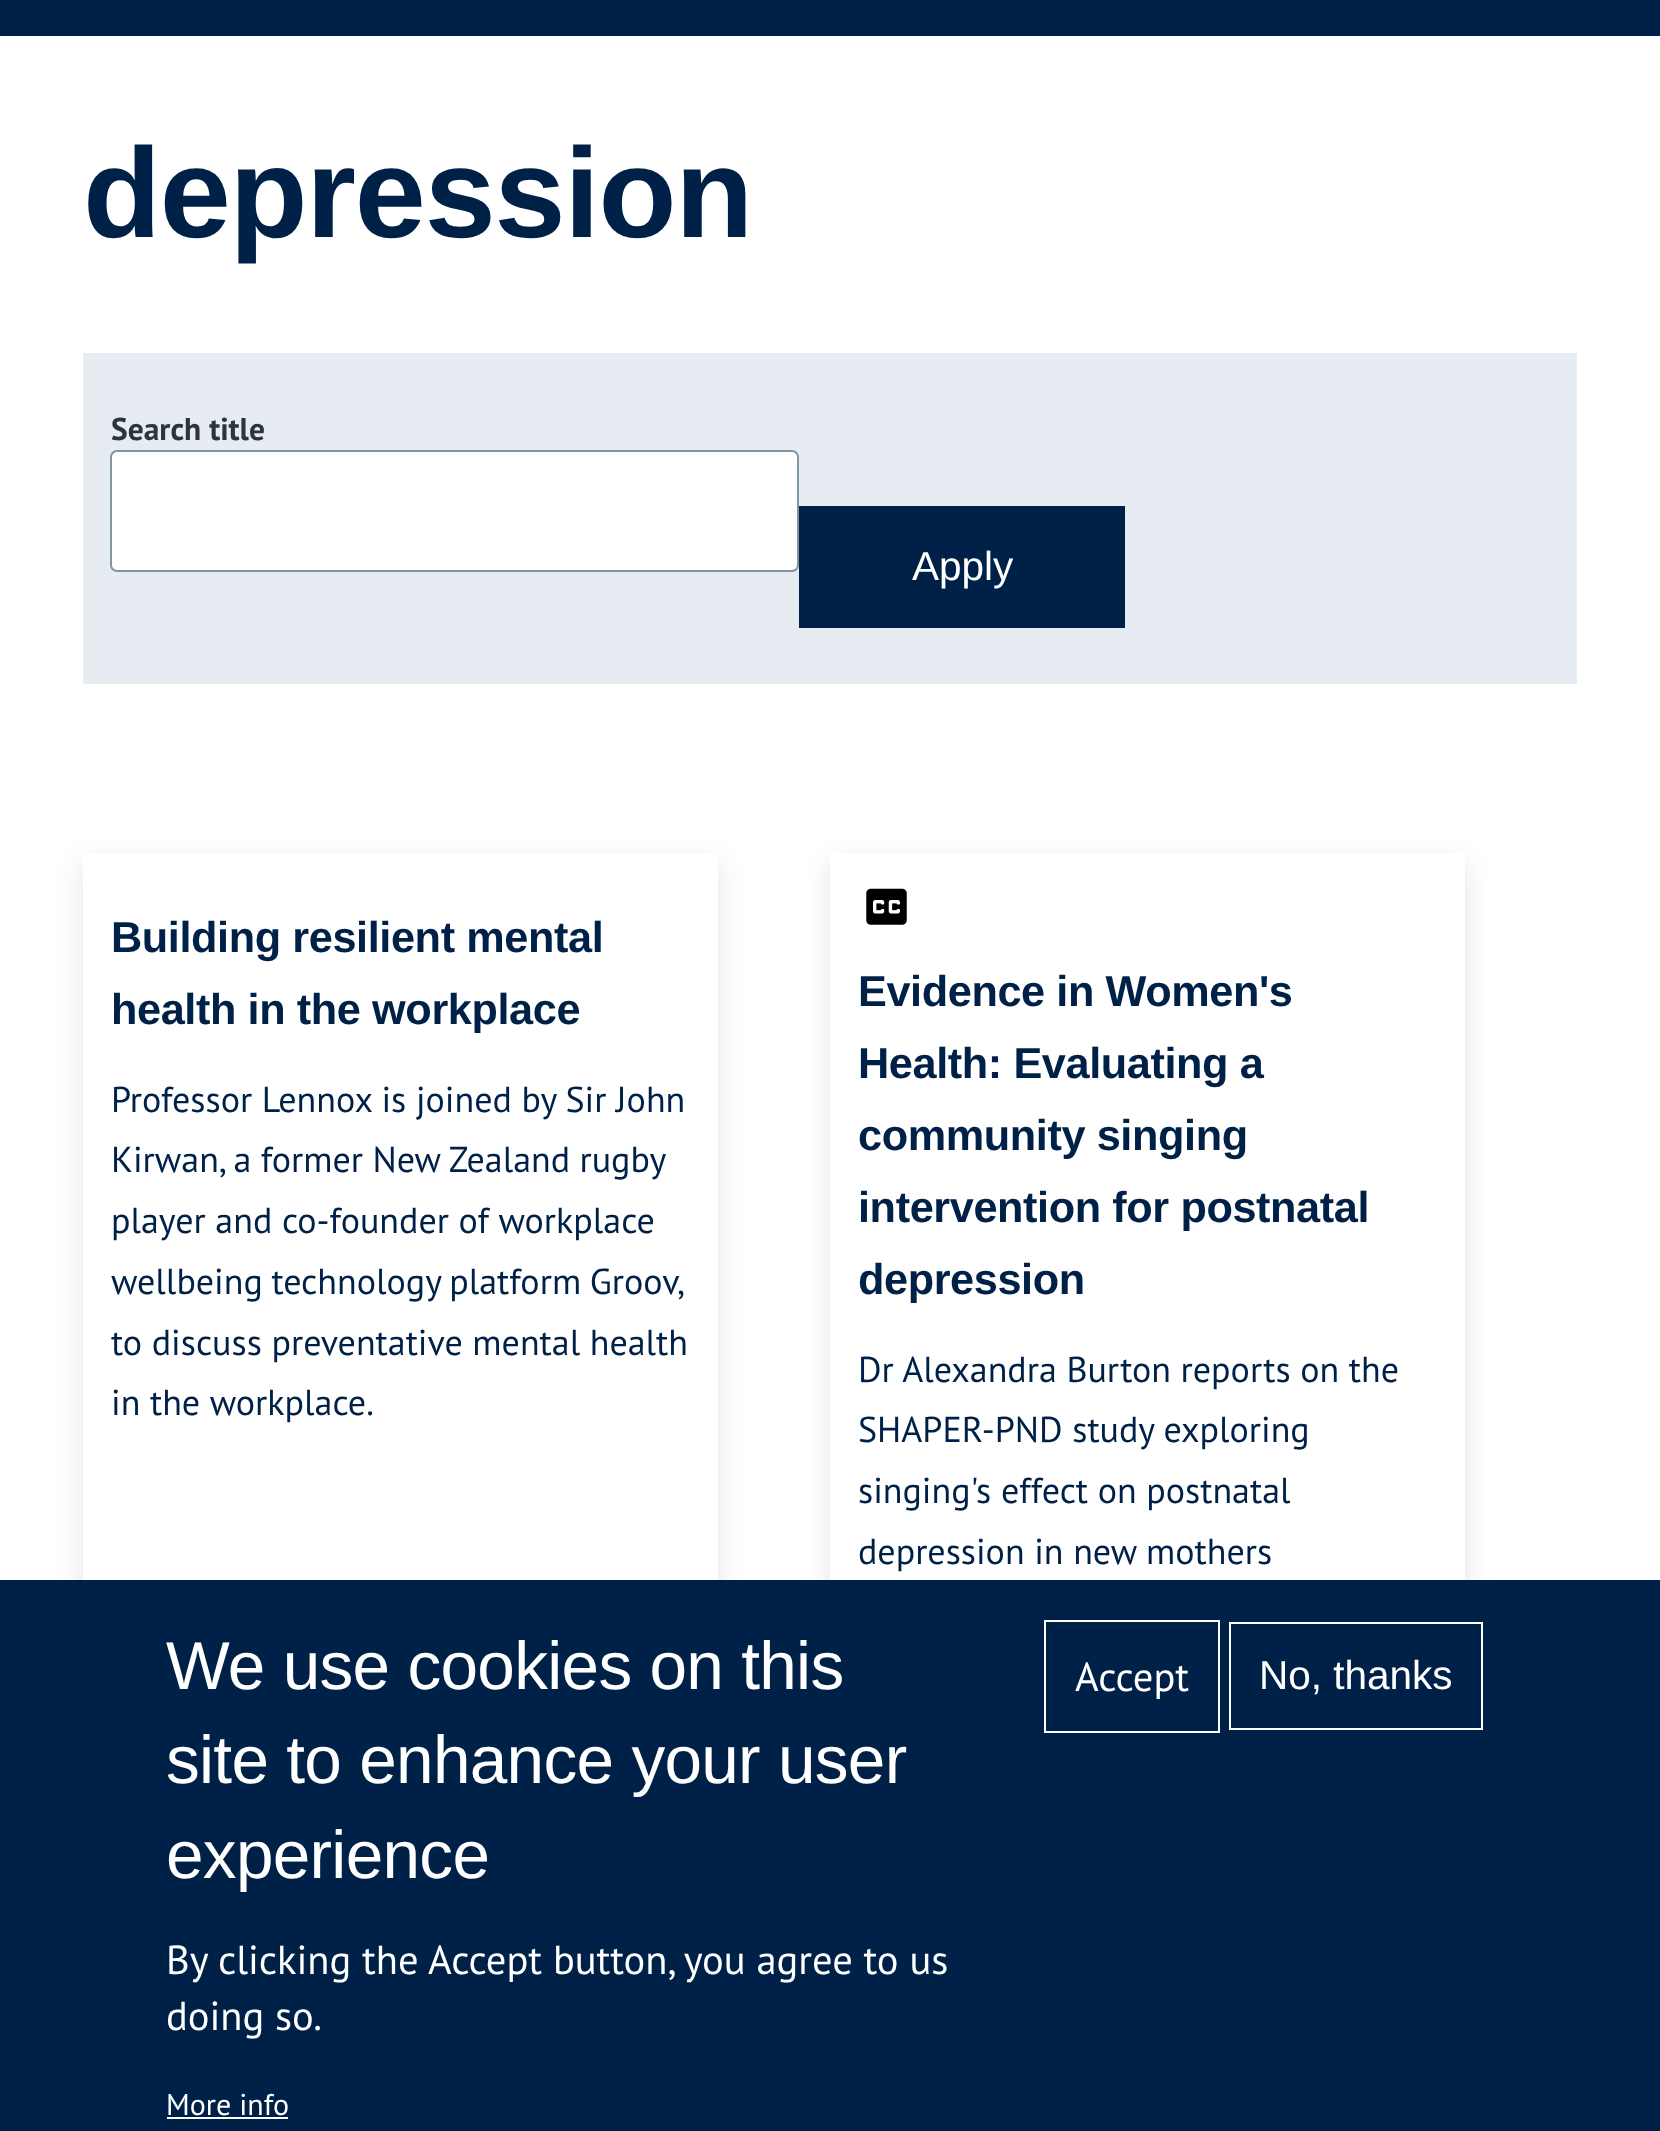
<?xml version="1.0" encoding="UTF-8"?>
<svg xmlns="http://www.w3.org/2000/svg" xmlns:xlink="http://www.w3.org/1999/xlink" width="1660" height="2131">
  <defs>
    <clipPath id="clip1"><path d="M 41 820 h 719 v 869 h -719 z m 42 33 h 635 v 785 h -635 z" clip-rule="evenodd" /></clipPath>
    <clipPath id="clip2"><path d="M 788 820 h 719 v 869 h -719 z m 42 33 h 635 v 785 h -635 z" clip-rule="evenodd" /></clipPath>
  </defs>
  <rect width="100%" height="100%" fill="#ffffff" />
  <rect width="1660" height="36" fill="#002147" />
  <rect x="83" y="353" width="1494" height="331" fill="#e7ecf3" />
  <rect x="111" y="451" width="687" height="120" rx="6" fill="#ffffff" stroke="#8196a2" stroke-width="2" />
  <rect x="799" y="506" width="326" height="122" fill="#002147" />
  <g clip-path="url(#clip1)">
    <rect x="83" y="862" width="635" height="785" fill="#000000" fill-opacity="0.1" filter="blur(13.5px)" />
  </g>
  <g clip-path="url(#clip2)">
    <rect x="830" y="862" width="635" height="785" fill="#000000" fill-opacity="0.1" filter="blur(13.5px)" />
  </g>
  <image x="866" y="888" width="41" height="37" xlink:href="image1.png" />
  <rect y="1580" width="1660" height="551" fill="#002147" />
  <rect x="167" y="2117" width="121" height="2" fill="#ffffff" />
  <rect x="1045" y="1621" width="174" height="111" fill="none" stroke="#ffffff" stroke-width="2" />
  <rect x="1230" y="1623" width="252" height="106" fill="none" stroke="#ffffff" stroke-width="2" />
  <text x="83" y="237" style="font-family: Liberation Sans; font-size: 127.75px; font-weight: bold; letter-spacing: -1.25px; fill: #002147">depression</text>
  <text x="111" y="440" style="font-family: PT Sans; font-size: 31.5px; font-weight: bold; fill: #2b353b">Search title</text>
  <text x="912" y="580" style="font-family: Liberation Sans; font-size: 40.5px; fill: #ffffff">Apply</text>
  <text x="111" y="952" style="font-family: Liberation Sans; font-size: 43.25px; font-weight: bold; letter-spacing: -0.4px; fill: #002147">Building resilient mental</text>
  <text x="111" y="1024" style="font-family: Liberation Sans; font-size: 43.25px; font-weight: bold; letter-spacing: -0.4px; fill: #002147">health in the workplace</text>
  <text x="111" y="1112" style="font-family: PT Sans; font-size: 36px; fill: #002147">Professor Lennox is joined by Sir John</text>
  <text x="111" y="1172" word-spacing="-0.25" style="font-family: PT Sans; font-size: 36px; fill: #002147">Kirwan, a former New Zealand rugby</text>
  <text x="111" y="1233" style="font-family: PT Sans; font-size: 36px; fill: #002147">player and co-founder of workplace</text>
  <text x="111" y="1294" word-spacing="-1" style="font-family: PT Sans; font-size: 36px; fill: #002147">wellbeing technology platform Groov,</text>
  <text x="111" y="1355" style="font-family: PT Sans; font-size: 36px; fill: #002147">to discuss preventative mental health</text>
  <text x="111" y="1415" style="font-family: PT Sans; font-size: 36px; fill: #002147">in the workplace.</text>
  <text x="858" y="1006" style="font-family: Liberation Sans; font-size: 43.25px; font-weight: bold; letter-spacing: -0.4px; fill: #002147">Evidence in Women's</text>
  <text x="858" y="1078" style="font-family: Liberation Sans; font-size: 43.25px; font-weight: bold; letter-spacing: -0.4px; fill: #002147">Health: Evaluating a</text>
  <text x="858" y="1150" style="font-family: Liberation Sans; font-size: 43.25px; font-weight: bold; letter-spacing: -0.4px; fill: #002147">community singing</text>
  <text x="858" y="1222" style="font-family: Liberation Sans; font-size: 43.25px; font-weight: bold; letter-spacing: -0.4px; fill: #002147">intervention for postnatal</text>
  <text x="858" y="1294" style="font-family: Liberation Sans; font-size: 43.25px; font-weight: bold; letter-spacing: -0.4px; fill: #002147">depression</text>
  <text x="858" y="1382" style="font-family: PT Sans; font-size: 36px; fill: #002147">Dr Alexandra Burton reports on the</text>
  <text x="858" y="1442" style="font-family: PT Sans; font-size: 36px; fill: #002147">SHAPER-PND study exploring</text>
  <text x="858" y="1503" style="font-family: PT Sans; font-size: 36px; fill: #002147">singing's effect on postnatal</text>
  <text x="858" y="1564" style="font-family: PT Sans; font-size: 36px; fill: #002147">depression in new mothers</text>
  <text x="166" y="1689" style="font-family: Liberation Sans; font-size: 67.5px; letter-spacing: -0.7px; fill: #ffffff">We use cookies on this</text>
  <text x="166" y="1783" style="font-family: Liberation Sans; font-size: 67.5px; letter-spacing: -0.7px; fill: #ffffff">site to enhance your user</text>
  <text x="166" y="1878" style="font-family: Liberation Sans; font-size: 67.5px; letter-spacing: -0.7px; fill: #ffffff">experience</text>
  <text x="166" y="1974" style="font-family: PT Sans; font-size: 40.5px; fill: #ffffff">By clicking the Accept button, you agree to us</text>
  <text x="166" y="2030" style="font-family: PT Sans; font-size: 40.5px; fill: #ffffff">doing so.</text>
  <text x="166" y="2115" style="font-family: PT Sans; font-size: 30px; fill: #ffffff">More info</text>
  <text x="1075" y="1691" style="font-family: PT Sans; font-size: 40.5px; fill: #ffffff">Accept</text>
  <text x="1259" y="1689" style="font-family: Liberation Sans; font-size: 40.5px; fill: #ffffff">No, thanks</text>
</svg>
